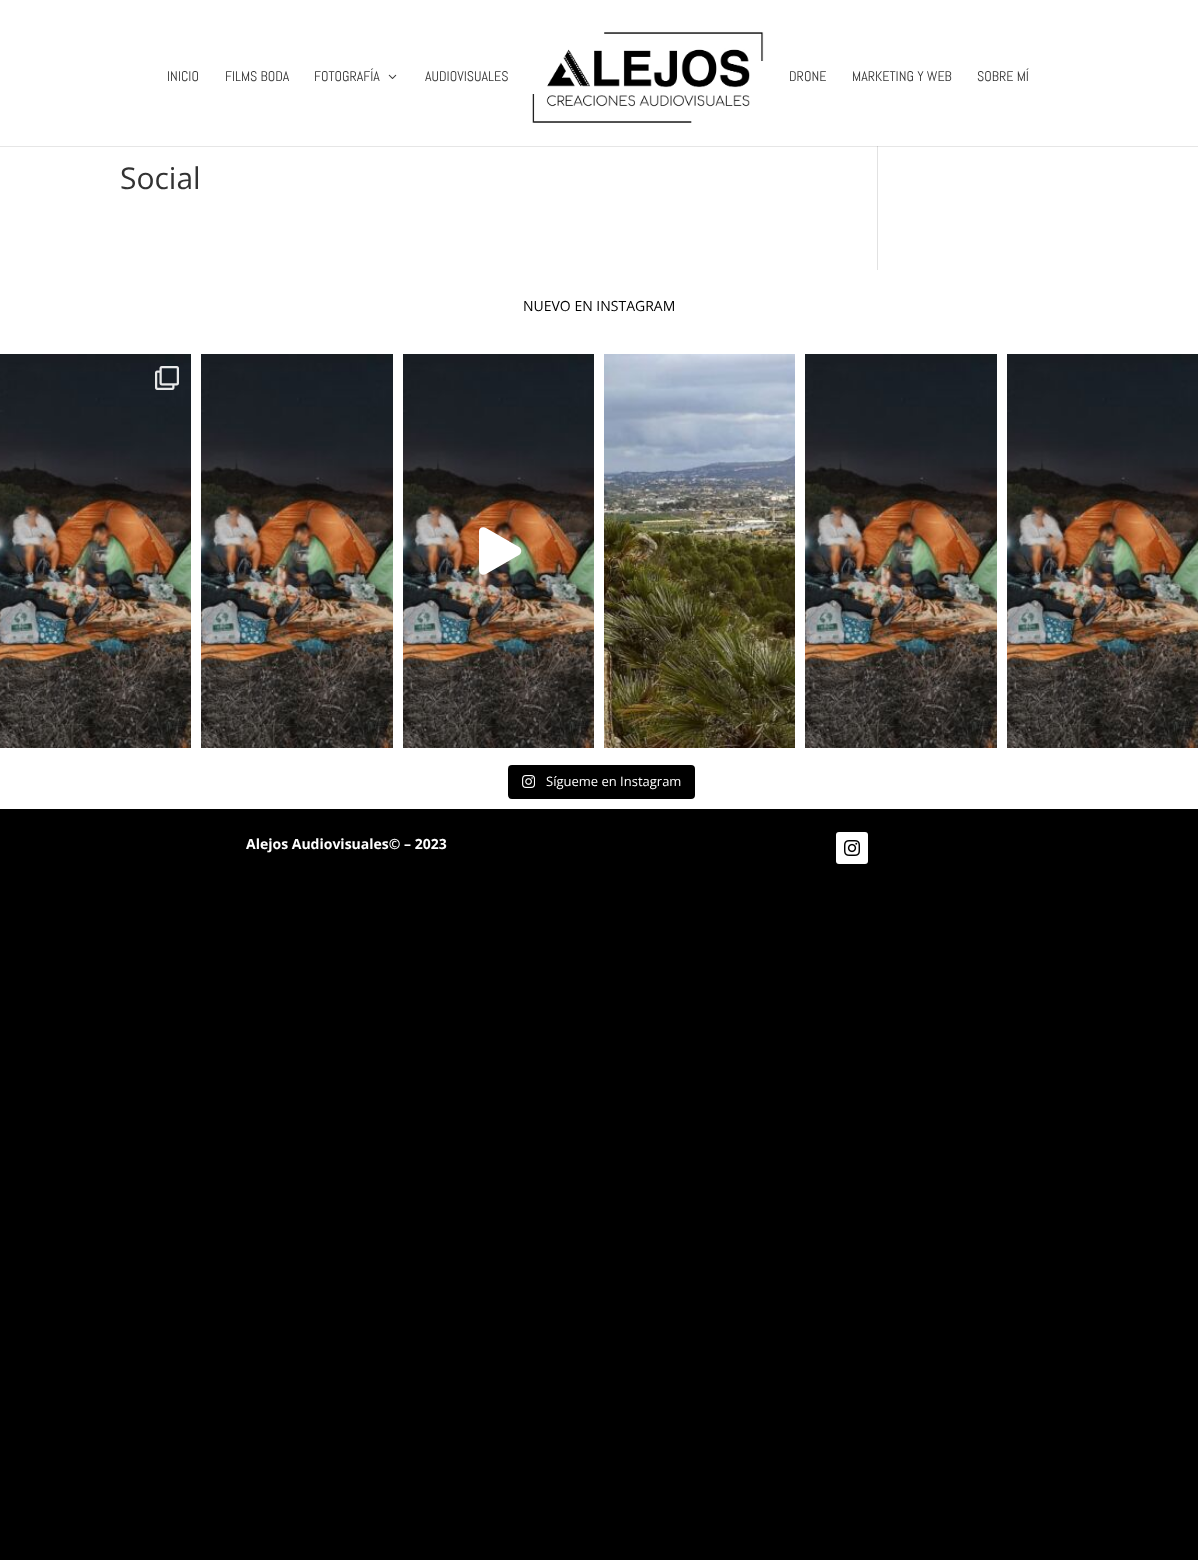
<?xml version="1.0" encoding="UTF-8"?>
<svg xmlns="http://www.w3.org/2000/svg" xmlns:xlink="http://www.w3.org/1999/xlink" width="1198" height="1560">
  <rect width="100%" height="100%" fill="#000000" />
  <rect width="1198" height="146" fill="#ffffff" />
  <image x="388" y="74" width="9" height="5" xlink:href="image1.png" />
  <image x="532" y="32" width="232" height="91" xlink:href="image2.png" />
  <rect y="147" width="1198" height="662" fill="#ffffff" />
  <rect y="146" width="1198" height="1" fill="#e6e6e6" />
  <rect x="877" y="147" width="1" height="123" fill="#e2e2e2" />
  <rect x="877" y="146" width="1" height="1" fill="#cbcbcb" />
  <image x="0" y="354" width="191" height="394" xlink:href="image3.png" />
  <image x="155" y="366" width="24" height="24" xlink:href="image4.png" />
  <image x="201" y="354" width="192" height="394" xlink:href="image5.png" />
  <image x="403" y="354" width="191" height="394" xlink:href="image3.png" />
  <path d="M 519 547 l -33 -19 c -3 -2 -7 0 -7 3 v 39 c 0 4 4 6 7 4 l 33 -19 c 3 -2 3 -6 0 -8 z" fill="#ffffff" />
  <image x="604" y="354" width="191" height="394" xlink:href="image6.png" />
  <image x="805" y="354" width="192" height="394" xlink:href="image5.png" />
  <image x="1007" y="354" width="191" height="394" xlink:href="image3.png" />
  <rect x="508" y="765" width="187" height="34" rx="4" fill="#000000" />
  <image x="522" y="775" width="13" height="13" xlink:href="image7.png" />
  <rect x="836" y="832" width="32" height="32" rx="3" fill="#ffffff" />
  <image x="844" y="840" width="16" height="16" xlink:href="image8.png" />
  <text x="167" y="81" style="font-family: Abel; font-size: 14px; fill: #333333">INICIO</text>
  <text x="225" y="81" style="font-family: Abel; font-size: 14px; fill: #333333">FILMS BODA</text>
  <text x="314" y="81" style="font-family: Abel; font-size: 14px; fill: #333333">FOTOGRAFÍA</text>
  <text x="425" y="81" style="font-family: Abel; font-size: 14px; fill: #333333">AUDIOVISUALES</text>
  <text x="789" y="81" style="font-family: Abel; font-size: 14px; fill: #333333">DRONE</text>
  <text x="852" y="81" style="font-family: Abel; font-size: 14px; fill: #333333">MARKETING Y WEB</text>
  <text x="977" y="81" style="font-family: Abel; font-size: 14px; fill: #333333">SOBRE MÍ</text>
  <text x="120" y="189" style="font-family: Open Sans; font-size: 30px; fill: #333333">Social</text>
  <text x="523" y="311" style="font-family: Open Sans; font-size: 14px; fill: #000000">NUEVO EN INSTAGRAM</text>
  <text x="546" y="786" style="font-family: Open Sans; font-size: 13px; fill: #ffffff">Sígueme en Instagram</text>
  <text x="246" y="849" style="font-family: Open Sans; font-size: 14px; font-weight: bold; fill: #ffffff">Alejos Audiovisuales© – 2023</text>
</svg>
